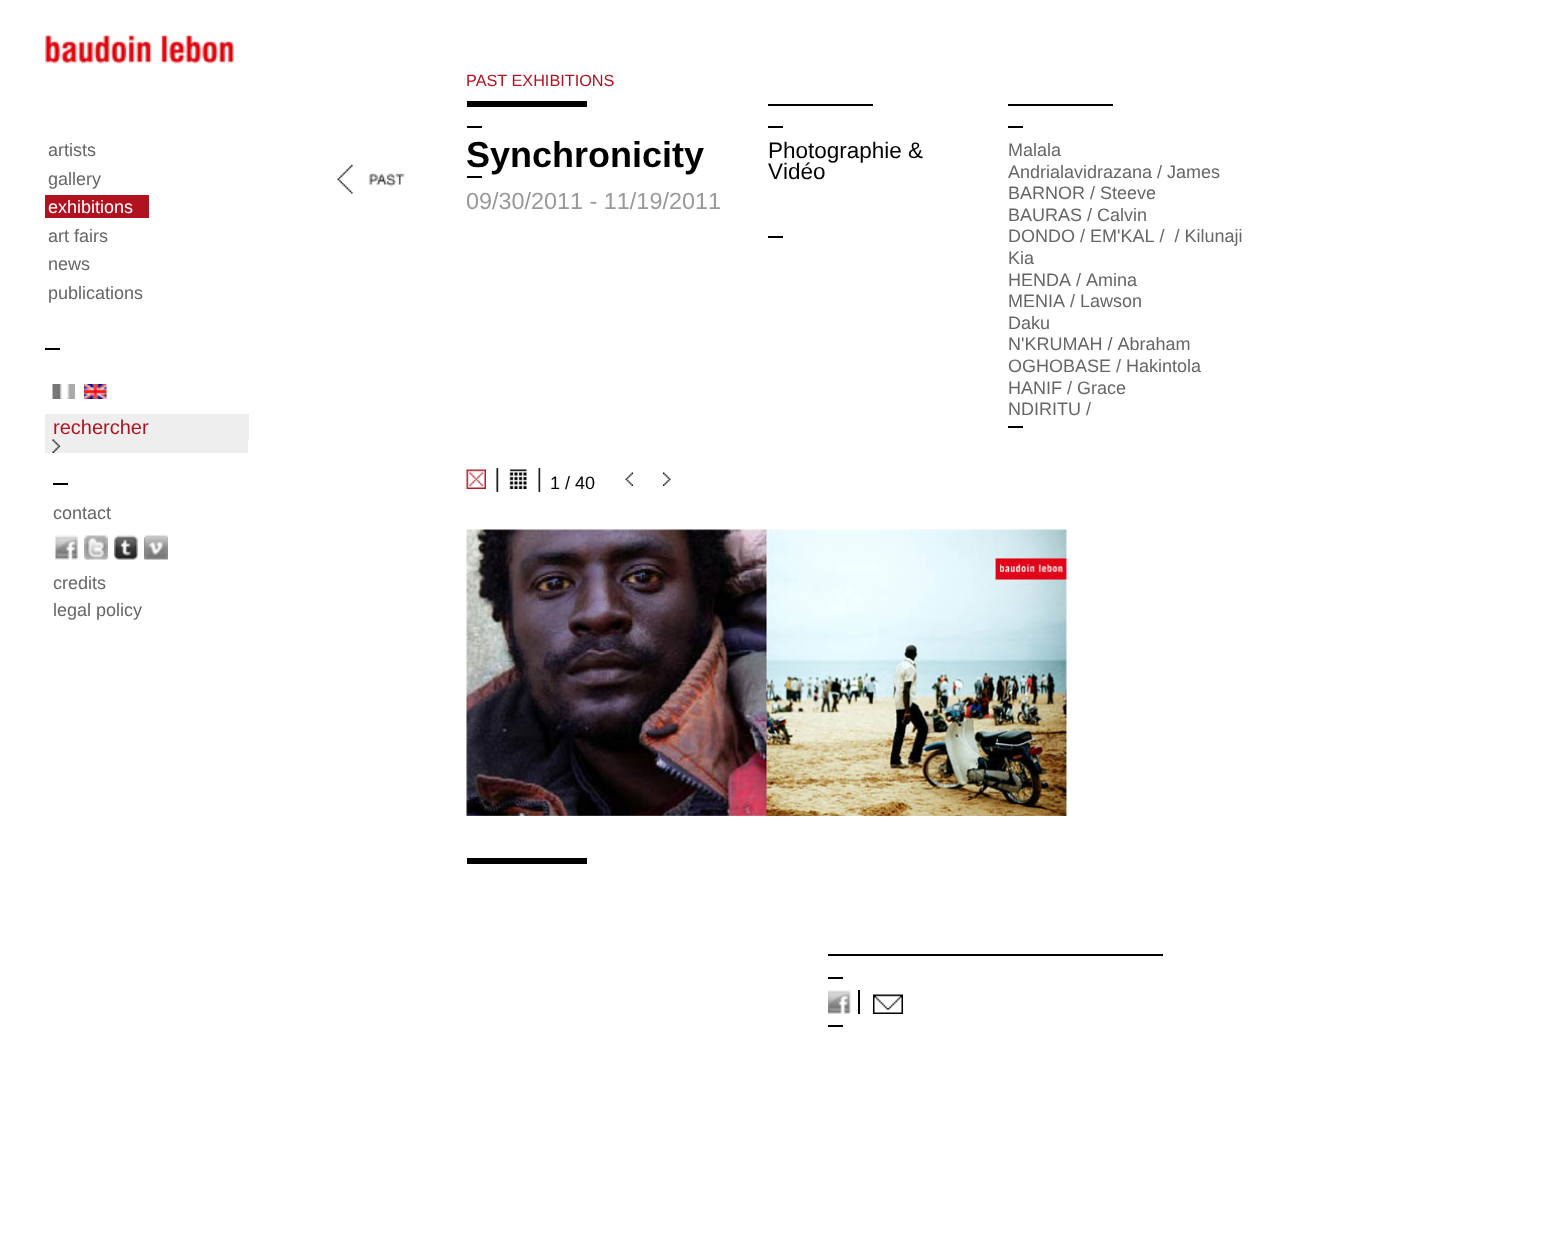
<?xml version="1.0" encoding="UTF-8"?>
<svg xmlns="http://www.w3.org/2000/svg" xmlns:xlink="http://www.w3.org/1999/xlink" width="1545" height="1259">
  <rect width="100%" height="100%" fill="#ffffff" />
  <image x="45" y="34" width="189" height="30" xlink:href="image1.png" />
  <rect x="45" y="195" width="104" height="23" fill="#b1121f" />
  <rect x="45" y="348" width="15" height="2" fill="#000000" />
  <image x="52" y="384" width="23" height="15" xlink:href="image2.png" />
  <image x="84" y="384" width="23" height="15" xlink:href="image3.png" />
  <rect x="45" y="440" width="203" height="13" fill="#eeeeee" />
  <rect x="45" y="414" width="204" height="26" fill="#eeeeee" />
  <image x="52" y="439" width="8" height="14" xlink:href="image4.png" />
  <rect x="53" y="483" width="15" height="2" fill="#000000" />
  <image x="55" y="535" width="23" height="25" xlink:href="image5.png" />
  <image x="84" y="535" width="24" height="25" xlink:href="image6.png" />
  <image x="114" y="535" width="24" height="25" xlink:href="image7.png" />
  <image x="144" y="535" width="24" height="25" xlink:href="image8.png" />
  <image x="337" y="165" width="68" height="29" xlink:href="image9.png" />
  <rect x="467" y="101" width="120" height="6" fill="#000000" />
  <rect x="768" y="104" width="105" height="2" fill="#000000" />
  <rect x="1008" y="104" width="105" height="2" fill="#000000" />
  <rect x="467" y="126" width="15" height="2" fill="#000000" />
  <rect x="467" y="176" width="15" height="2" fill="#000000" />
  <rect x="768" y="126" width="15" height="2" fill="#000000" />
  <rect x="768" y="236" width="15" height="2" fill="#000000" />
  <rect x="1008" y="126" width="15" height="2" fill="#000000" />
  <rect x="1008" y="426" width="15" height="2" fill="#000000" />
  <image x="466" y="469" width="20" height="20" xlink:href="image10.png" />
  <image x="496" y="468" width="3" height="24" xlink:href="image11.png" />
  <image x="509" y="469" width="18" height="20" xlink:href="image12.png" />
  <image x="538" y="468" width="3" height="24" xlink:href="image13.png" />
  <image x="625" y="472" width="8" height="14" xlink:href="image14.png" />
  <image x="663" y="472" width="8" height="14" xlink:href="image15.png" />
  <image x="466" y="529" width="601" height="287" xlink:href="image16.png" />
  <rect x="467" y="858" width="120" height="6" fill="#000000" />
  <rect x="828" y="954" width="335" height="2" fill="#000000" />
  <rect x="828" y="977" width="15" height="2" fill="#000000" />
  <image x="828" y="990" width="23" height="24" xlink:href="image17.png" />
  <rect x="858" y="990" width="2" height="24" fill="#000000" />
  <image x="873" y="994" width="30" height="20" xlink:href="image18.png" />
  <rect x="828" y="1025" width="15" height="2" fill="#000000" />
  <text x="48" y="156" style="font-family: Arimo; font-size: 18px; fill: #666666">artists</text>
  <text x="48" y="185" style="font-family: Arimo; font-size: 18px; fill: #666666">gallery</text>
  <text x="48" y="213" style="font-family: Arimo; font-size: 18px; fill: #ffffff">exhibitions</text>
  <text x="48" y="242" style="font-family: Arimo; font-size: 18px; fill: #666666">art fairs</text>
  <text x="48" y="270" style="font-family: Arimo; font-size: 18px; fill: #666666">news</text>
  <text x="48" y="299" style="font-family: Arimo; font-size: 18px; fill: #666666">publications</text>
  <text x="53" y="434" style="font-family: Liberation Sans; font-size: 20px; fill: #b1121f">rechercher</text>
  <text x="53" y="519" style="font-family: Arimo; font-size: 18px; fill: #666666">contact</text>
  <text x="53" y="589" style="font-family: Arimo; font-size: 18px; fill: #666666">credits</text>
  <text x="53" y="616" style="font-family: Arimo; font-size: 18px; fill: #666666">legal policy</text>
  <text x="466" y="86" style="font-family: Liberation Sans; font-size: 16.25px; fill: #b1121f">PAST EXHIBITIONS</text>
  <text x="466" y="167" style="font-family: Arimo; font-size: 36px; font-weight: bold; fill: #000000">Synchronicity</text>
  <text x="466" y="209" style="font-family: Arimo; font-size: 23.4px; fill: #999999">09/30/2011 - 11/19/2011</text>
  <text x="768" y="158" style="font-family: Arimo; font-size: 22.5px; fill: #000000">Photographie &amp;</text>
  <text x="768" y="179" style="font-family: Arimo; font-size: 22.5px; fill: #000000">Vidéo</text>
  <text x="1008" y="156" style="font-family: Arimo; font-size: 18px; fill: #666666">Malala</text>
  <text x="1008" y="178" style="font-family: Arimo; font-size: 18px; fill: #666666">Andrialavidrazana / James</text>
  <text x="1008" y="199" style="font-family: Arimo; font-size: 18px; fill: #666666">BARNOR / Steeve</text>
  <text x="1008" y="221" style="font-family: Arimo; font-size: 18px; fill: #666666">BAURAS / Calvin</text>
  <text x="1008" y="242" style="font-family: Arimo; font-size: 18px; fill: #666666" xml:space="preserve">DONDO / EM'KAL /  / Kilunaji</text>
  <text x="1008" y="264" style="font-family: Arimo; font-size: 18px; fill: #666666">Kia</text>
  <text x="1008" y="286" style="font-family: Arimo; font-size: 18px; fill: #666666">HENDA / Amina</text>
  <text x="1008" y="307" style="font-family: Arimo; font-size: 18px; fill: #666666">MENIA / Lawson</text>
  <text x="1008" y="329" style="font-family: Arimo; font-size: 18px; fill: #666666">Daku</text>
  <text x="1008" y="350" style="font-family: Arimo; font-size: 18px; fill: #666666">N'KRUMAH / Abraham</text>
  <text x="1008" y="372" style="font-family: Arimo; font-size: 18px; fill: #666666">OGHOBASE / Hakintola</text>
  <text x="1008" y="394" style="font-family: Arimo; font-size: 18px; fill: #666666">HANIF / Grace</text>
  <text x="1008" y="415" style="font-family: Arimo; font-size: 18px; fill: #666666">NDIRITU /</text>
  <text x="550" y="489" style="font-family: Liberation Sans; font-size: 18px; fill: #000000">1 / 40</text>
</svg>
